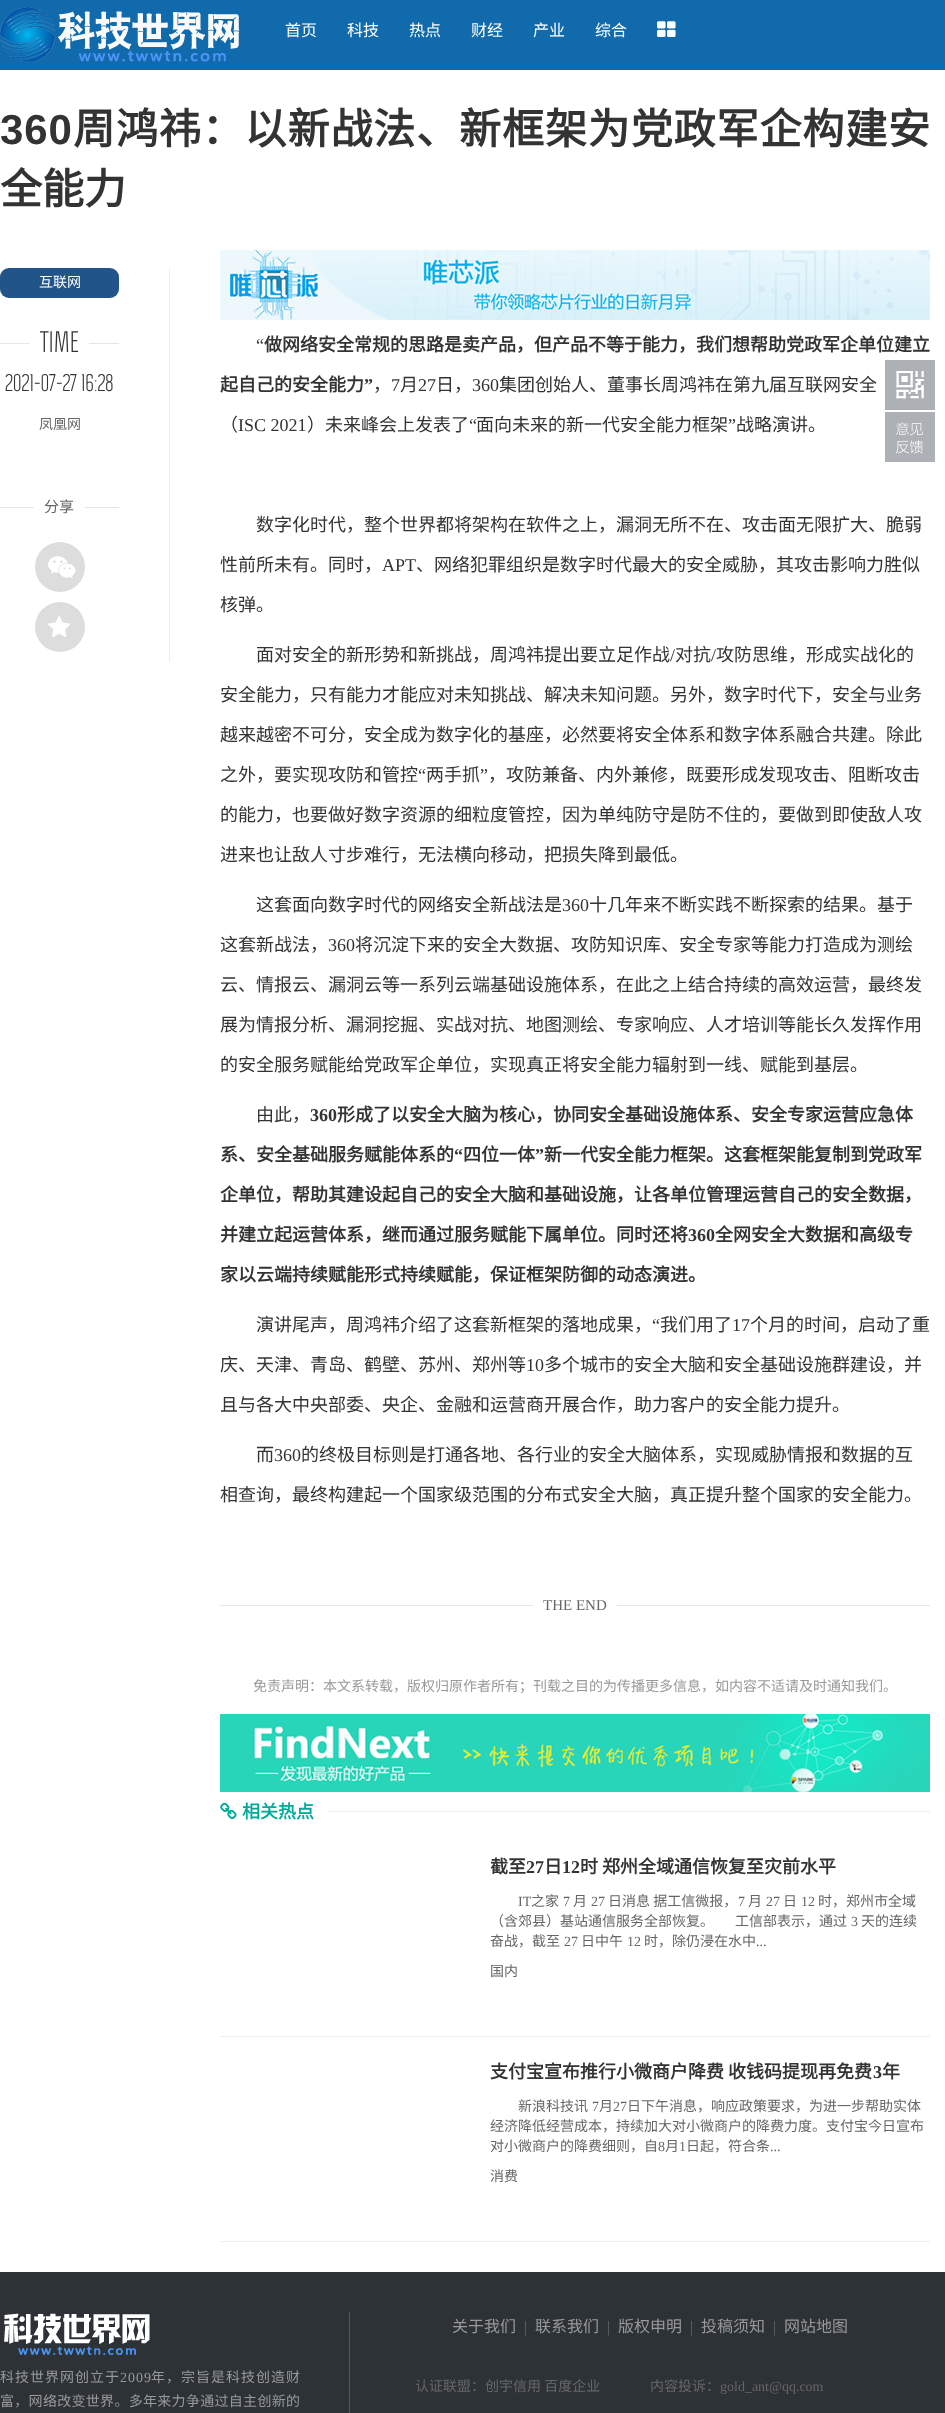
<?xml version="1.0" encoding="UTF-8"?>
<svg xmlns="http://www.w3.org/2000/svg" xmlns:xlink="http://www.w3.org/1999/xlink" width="945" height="2413">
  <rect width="100%" height="100%" fill="#ffffff" />
  <rect width="945" height="70" fill="#106aab" />
  <image x="0" y="7" width="240" height="55" xlink:href="image1.png" />
  <image x="657" y="21" width="19" height="16" xlink:href="image2.png" />
  <rect x="169" y="268" width="1" height="394" fill="#eeeeee" />
  <rect y="268" width="119" height="30" rx="9" fill="#215488" />
  <rect y="343" width="119" height="1" fill="#e6e6e6" />
  <rect x="30" y="343" width="59" height="1" fill="#ffffff" />
  <rect y="507" width="119" height="1" fill="#e6e6e6" />
  <rect x="34" y="499" width="51" height="16" rx="8" fill="#ffffff" />
  <circle cx="60" cy="567" r="25" fill="#dddddd" />
  <image x="48" y="556" width="28" height="23" xlink:href="image3.png" />
  <circle cx="60" cy="627" r="25" fill="#dddddd" />
  <image x="48" y="616" width="22" height="21" xlink:href="image4.png" />
  <image x="220" y="250" width="710" height="70" xlink:href="image5.png" />
  <rect x="220" y="1605" width="710" height="1" fill="#e6e6e6" />
  <rect x="533" y="1597" width="84" height="16" rx="8" fill="#ffffff" />
  <image x="220" y="1714" width="710" height="78" xlink:href="image6.png" />
  <image x="220" y="1802" width="17" height="18" xlink:href="image7.png" />
  <rect x="329" y="1811" width="601" height="1" fill="#eeeeee" />
  <rect x="220" y="2036" width="710" height="1" fill="#eeeeee" />
  <rect x="220" y="2241" width="710" height="1" fill="#eeeeee" />
  <rect x="885" y="360" width="50" height="50" fill="#adb0b5" />
  <image x="896" y="371" width="28" height="28" xlink:href="image8.png" />
  <rect x="885" y="412" width="50" height="50" fill="#adb0b5" />
  <image x="895" y="422" width="28" height="32" xlink:href="image9.png" />
  <rect y="2272" width="945" height="141" fill="#2d3237" />
  <rect x="349" y="2312" width="1" height="101" fill="#575b5f" />
  <image x="4" y="2313" width="146" height="42" xlink:href="image10.png" />
  <text x="285" y="36" style="font-family: Noto Sans CJK SC; font-size: 16px; fill: #ffffff">首页</text>
  <text x="347" y="36" style="font-family: Noto Sans CJK SC; font-size: 16px; fill: #ffffff">科技</text>
  <text x="409" y="36" style="font-family: Noto Sans CJK SC; font-size: 16px; fill: #ffffff">热点</text>
  <text x="471" y="36" style="font-family: Noto Sans CJK SC; font-size: 16px; fill: #ffffff">财经</text>
  <text x="533" y="36" style="font-family: Noto Sans CJK SC; font-size: 16px; fill: #ffffff">产业</text>
  <text x="595" y="36" style="font-family: Noto Sans CJK SC; font-size: 16px; fill: #ffffff">综合</text>
  <text x="0" y="144" style="font-family: Liberation Sans; font-size: 42px; font-weight: bold; letter-spacing: 0.9px; fill: #333333">360</text>
  <text x="73" y="144" style="font-family: Noto Sans CJK SC; font-size: 42px; font-weight: bold; letter-spacing: 0.9px; fill: #333333">周鸿祎：以新战法、新框架为党政军企构建安</text>
  <text x="0" y="204" style="font-family: Noto Sans CJK SC; font-size: 42px; font-weight: bold; fill: #333333">全能力</text>
  <text x="39" y="287" style="font-family: Noto Sans CJK SC; font-size: 14px; fill: #ffffff">互联网</text>
  <text x="40" y="352" style="font-family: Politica; font-size: 26px; fill: #333333">TIME</text>
  <text x="5" y="391" style="font-family: Politica; font-size: 22px; fill: #333333">2021-07-27 16:28</text>
  <text x="39" y="429" style="font-family: Noto Sans CJK SC; font-size: 14px; fill: #666666">凤凰网</text>
  <text x="44" y="512" style="font-family: Noto Sans CJK SC; font-size: 15px; fill: #666666">分享</text>
  <text x="256" y="351" style="font-family: Liberation Serif; font-size: 18px; fill: #333333">“</text>
  <text x="264" y="351" style="font-family: Noto Sans CJK SC; font-size: 18px; font-weight: bold; fill: #333333">做网络安全常规的思路是卖产品，但产品不等于能力，我们想帮助党政军企单位建立</text>
  <text x="220" y="391" style="font-family: Noto Sans CJK SC; font-size: 18px; font-weight: bold; fill: #333333">起自己的安全能力</text>
  <text x="364" y="391" style="font-family: Liberation Serif; font-size: 18px; font-weight: bold; fill: #333333">”</text>
  <text x="373" y="391" style="font-family: Noto Sans CJK SC; font-size: 18px; fill: #333333">，</text>
  <text x="391" y="391" style="font-family: Liberation Serif; font-size: 18px; fill: #333333">7</text>
  <text x="400" y="391" style="font-family: Noto Sans CJK SC; font-size: 18px; fill: #333333">月</text>
  <text x="418" y="391" style="font-family: Liberation Serif; font-size: 18px; fill: #333333">27</text>
  <text x="436" y="391" style="font-family: Noto Sans CJK SC; font-size: 18px; fill: #333333">日，</text>
  <text x="472" y="391" style="font-family: Liberation Serif; font-size: 18px; fill: #333333">360</text>
  <text x="499" y="391" style="font-family: Noto Sans CJK SC; font-size: 18px; fill: #333333">集团创始人、董事长周鸿祎在第九届互联网安全</text>
  <text x="220" y="431" style="font-family: Noto Sans CJK SC; font-size: 18px; fill: #333333">（</text>
  <text x="238" y="431" style="font-family: Liberation Serif; font-size: 18px; fill: #333333">ISC 2021</text>
  <text x="307" y="431" style="font-family: Noto Sans CJK SC; font-size: 18px; fill: #333333">）未来峰会上发表了</text>
  <text x="469" y="431" style="font-family: Liberation Serif; font-size: 18px; fill: #333333">“</text>
  <text x="476" y="431" style="font-family: Noto Sans CJK SC; font-size: 18px; fill: #333333">面向未来的新一代安全能力框架</text>
  <text x="728" y="431" style="font-family: Liberation Serif; font-size: 18px; fill: #333333">”</text>
  <text x="736" y="431" style="font-family: Noto Sans CJK SC; font-size: 18px; fill: #333333">战略演讲。</text>
  <text x="256" y="531" style="font-family: Noto Sans CJK SC; font-size: 18px; fill: #333333">数字化时代，整个世界都将架构在软件之上，漏洞无所不在、攻击面无限扩大、脆弱</text>
  <text x="220" y="571" style="font-family: Noto Sans CJK SC; font-size: 18px; fill: #333333">性前所未有。同时，</text>
  <text x="382" y="571" style="font-family: Liberation Serif; font-size: 18px; fill: #333333">APT</text>
  <text x="416" y="571" style="font-family: Noto Sans CJK SC; font-size: 18px; fill: #333333">、网络犯罪组织是数字时代最大的安全威胁，其攻击影响力胜似</text>
  <text x="220" y="611" style="font-family: Noto Sans CJK SC; font-size: 18px; fill: #333333">核弹。</text>
  <text x="256" y="661" style="font-family: Noto Sans CJK SC; font-size: 18px; fill: #333333">面对安全的新形势和新挑战，周鸿祎提出要立足作战</text>
  <text x="670" y="661" style="font-family: Liberation Serif; font-size: 18px; fill: #333333">/</text>
  <text x="675" y="661" style="font-family: Noto Sans CJK SC; font-size: 18px; fill: #333333">对抗</text>
  <text x="711" y="661" style="font-family: Liberation Serif; font-size: 18px; fill: #333333">/</text>
  <text x="716" y="661" style="font-family: Noto Sans CJK SC; font-size: 18px; fill: #333333">攻防思维，形成实战化的</text>
  <text x="220" y="701" style="font-family: Noto Sans CJK SC; font-size: 18px; fill: #333333">安全能力，只有能力才能应对未知挑战、解决未知问题。另外，数字时代下，安全与业务</text>
  <text x="220" y="741" style="font-family: Noto Sans CJK SC; font-size: 18px; fill: #333333">越来越密不可分，安全成为数字化的基座，必然要将安全体系和数字体系融合共建。除此</text>
  <text x="220" y="781" style="font-family: Noto Sans CJK SC; font-size: 18px; fill: #333333">之外，要实现攻防和管控</text>
  <text x="418" y="781" style="font-family: Liberation Serif; font-size: 18px; fill: #333333">“</text>
  <text x="426" y="781" style="font-family: Noto Sans CJK SC; font-size: 18px; fill: #333333">两手抓</text>
  <text x="480" y="781" style="font-family: Liberation Serif; font-size: 18px; fill: #333333">”</text>
  <text x="488" y="781" style="font-family: Noto Sans CJK SC; font-size: 18px; fill: #333333">，攻防兼备、内外兼修，既要形成发现攻击、阻断攻击</text>
  <text x="220" y="821" style="font-family: Noto Sans CJK SC; font-size: 18px; fill: #333333">的能力，也要做好数字资源的细粒度管控，因为单纯防守是防不住的，要做到即使敌人攻</text>
  <text x="220" y="861" style="font-family: Noto Sans CJK SC; font-size: 18px; fill: #333333">进来也让敌人寸步难行，无法横向移动，把损失降到最低。</text>
  <text x="256" y="911" style="font-family: Noto Sans CJK SC; font-size: 18px; fill: #333333">这套面向数字时代的网络安全新战法是</text>
  <text x="562" y="911" style="font-family: Liberation Serif; font-size: 18px; fill: #333333">360</text>
  <text x="589" y="911" style="font-family: Noto Sans CJK SC; font-size: 18px; fill: #333333">十几年来不断实践不断探索的结果。基于</text>
  <text x="220" y="951" style="font-family: Noto Sans CJK SC; font-size: 18px; fill: #333333">这套新战法，</text>
  <text x="328" y="951" style="font-family: Liberation Serif; font-size: 18px; fill: #333333">360</text>
  <text x="355" y="951" style="font-family: Noto Sans CJK SC; font-size: 18px; fill: #333333">将沉淀下来的安全大数据、攻防知识库、安全专家等能力打造成为测绘</text>
  <text x="220" y="991" style="font-family: Noto Sans CJK SC; font-size: 18px; fill: #333333">云、情报云、漏洞云等一系列云端基础设施体系，在此之上结合持续的高效运营，最终发</text>
  <text x="220" y="1031" style="font-family: Noto Sans CJK SC; font-size: 18px; fill: #333333">展为情报分析、漏洞挖掘、实战对抗、地图测绘、专家响应、人才培训等能长久发挥作用</text>
  <text x="220" y="1071" style="font-family: Noto Sans CJK SC; font-size: 18px; fill: #333333">的安全服务赋能给党政军企单位，实现真正将安全能力辐射到一线、赋能到基层。</text>
  <text x="256" y="1121" style="font-family: Noto Sans CJK SC; font-size: 18px; fill: #333333">由此，</text>
  <text x="310" y="1121" style="font-family: Liberation Serif; font-size: 18px; font-weight: bold; fill: #333333">360</text>
  <text x="337" y="1121" style="font-family: Noto Sans CJK SC; font-size: 18px; font-weight: bold; fill: #333333">形成了以安全大脑为核心，协同安全基础设施体系、安全专家运营应急体</text>
  <text x="220" y="1161" style="font-family: Noto Sans CJK SC; font-size: 18px; font-weight: bold; fill: #333333">系、安全基础服务赋能体系的</text>
  <text x="454" y="1161" style="font-family: Liberation Serif; font-size: 18px; font-weight: bold; fill: #333333">“</text>
  <text x="463" y="1161" style="font-family: Noto Sans CJK SC; font-size: 18px; font-weight: bold; fill: #333333">四位一体</text>
  <text x="535" y="1161" style="font-family: Liberation Serif; font-size: 18px; font-weight: bold; fill: #333333">”</text>
  <text x="544" y="1161" style="font-family: Noto Sans CJK SC; font-size: 18px; font-weight: bold; fill: #333333">新一代安全能力框架。这套框架能复制到党政军</text>
  <text x="220" y="1201" style="font-family: Noto Sans CJK SC; font-size: 18px; font-weight: bold; fill: #333333">企单位，帮助其建设起自己的安全大脑和基础设施，让各单位管理运营自己的安全数据，</text>
  <text x="220" y="1241" style="font-family: Noto Sans CJK SC; font-size: 18px; font-weight: bold; fill: #333333">并建立起运营体系，继而通过服务赋能下属单位。同时还将</text>
  <text x="688" y="1241" style="font-family: Liberation Serif; font-size: 18px; font-weight: bold; fill: #333333">360</text>
  <text x="715" y="1241" style="font-family: Noto Sans CJK SC; font-size: 18px; font-weight: bold; fill: #333333">全网安全大数据和高级专</text>
  <text x="220" y="1281" style="font-family: Noto Sans CJK SC; font-size: 18px; font-weight: bold; fill: #333333">家以云端持续赋能形式持续赋能，保证框架防御的动态演进。</text>
  <text x="256" y="1331" style="font-family: Noto Sans CJK SC; font-size: 18px; fill: #333333">演讲尾声，周鸿祎介绍了这套新框架的落地成果，</text>
  <text x="652" y="1331" style="font-family: Liberation Serif; font-size: 18px; fill: #333333">“</text>
  <text x="660" y="1331" style="font-family: Noto Sans CJK SC; font-size: 18px; fill: #333333">我们用了</text>
  <text x="732" y="1331" style="font-family: Liberation Serif; font-size: 18px; fill: #333333">17</text>
  <text x="750" y="1331" style="font-family: Noto Sans CJK SC; font-size: 18px; fill: #333333">个月的时间，启动了重</text>
  <text x="220" y="1371" style="font-family: Noto Sans CJK SC; font-size: 18px; fill: #333333">庆、天津、青岛、鹤壁、苏州、郑州等</text>
  <text x="526" y="1371" style="font-family: Liberation Serif; font-size: 18px; fill: #333333">10</text>
  <text x="544" y="1371" style="font-family: Noto Sans CJK SC; font-size: 18px; fill: #333333">多个城市的安全大脑和安全基础设施群建设，并</text>
  <text x="220" y="1411" style="font-family: Noto Sans CJK SC; font-size: 18px; fill: #333333">且与各大中央部委、央企、金融和运营商开展合作，助力客户的安全能力提升。</text>
  <text x="256" y="1461" style="font-family: Noto Sans CJK SC; font-size: 18px; fill: #333333">而</text>
  <text x="274" y="1461" style="font-family: Liberation Serif; font-size: 18px; fill: #333333">360</text>
  <text x="301" y="1461" style="font-family: Noto Sans CJK SC; font-size: 18px; fill: #333333">的终极目标则是打通各地、各行业的安全大脑体系，实现威胁情报和数据的互</text>
  <text x="220" y="1501" style="font-family: Noto Sans CJK SC; font-size: 18px; fill: #333333">相查询，最终构建起一个国家级范围的分布式安全大脑，真正提升整个国家的安全能力。</text>
  <text x="543" y="1610" style="font-family: Liberation Serif; font-size: 15px; fill: #666666">THE END</text>
  <text x="253" y="1691" style="font-family: Noto Sans CJK SC; font-size: 14px; fill: #999999">免责声明：本文系转载，版权归原作者所有；刊载之目的为传播更多信息，如内容不适请及时通知我们。</text>
  <text x="242" y="1818" style="font-family: Noto Sans CJK SC; font-size: 18px; font-weight: bold; fill: #00aa98">相关热点</text>
  <text x="490" y="1873" style="font-family: Noto Sans CJK SC; font-size: 18px; font-weight: bold; fill: #333333">截至</text>
  <text x="526" y="1873" style="font-family: Liberation Serif; font-size: 18px; font-weight: bold; fill: #333333">27</text>
  <text x="544" y="1873" style="font-family: Noto Sans CJK SC; font-size: 18px; font-weight: bold; fill: #333333">日</text>
  <text x="562" y="1873" style="font-family: Liberation Serif; font-size: 18px; font-weight: bold; fill: #333333">12</text>
  <text x="580" y="1873" style="font-family: Noto Sans CJK SC; font-size: 18px; font-weight: bold; fill: #333333">时 郑州全域通信恢复至灾前水平</text>
  <text x="518" y="1906" style="font-family: Liberation Serif; font-size: 14px; fill: #666666">IT</text>
  <text x="531" y="1906" style="font-family: Noto Sans CJK SC; font-size: 14px; fill: #666666">之家</text>
  <text x="563" y="1906" style="font-family: Liberation Serif; font-size: 14px; fill: #666666">7</text>
  <text x="573" y="1906" style="font-family: Noto Sans CJK SC; font-size: 14px; fill: #666666">月</text>
  <text x="591" y="1906" style="font-family: Liberation Serif; font-size: 14px; fill: #666666">27</text>
  <text x="608" y="1906" style="font-family: Noto Sans CJK SC; font-size: 14px; fill: #666666">日消息 据工信微报，</text>
  <text x="738" y="1906" style="font-family: Liberation Serif; font-size: 14px; fill: #666666">7</text>
  <text x="748" y="1906" style="font-family: Noto Sans CJK SC; font-size: 14px; fill: #666666">月</text>
  <text x="766" y="1906" style="font-family: Liberation Serif; font-size: 14px; fill: #666666">27</text>
  <text x="783" y="1906" style="font-family: Noto Sans CJK SC; font-size: 14px; fill: #666666">日</text>
  <text x="801" y="1906" style="font-family: Liberation Serif; font-size: 14px; fill: #666666">12</text>
  <text x="818" y="1906" style="font-family: Noto Sans CJK SC; font-size: 14px; fill: #666666">时，郑州市全域</text>
  <text x="490" y="1926" style="font-family: Noto Sans CJK SC; font-size: 14px; fill: #666666">（含郊县）基站通信服务全部恢复。　　工信部表示，通过</text>
  <text x="851" y="1926" style="font-family: Liberation Serif; font-size: 14px; fill: #666666">3</text>
  <text x="861" y="1926" style="font-family: Noto Sans CJK SC; font-size: 14px; fill: #666666">天的连续</text>
  <text x="490" y="1946" style="font-family: Noto Sans CJK SC; font-size: 14px; fill: #666666">奋战，截至</text>
  <text x="564" y="1946" style="font-family: Liberation Serif; font-size: 14px; fill: #666666">27</text>
  <text x="581" y="1946" style="font-family: Noto Sans CJK SC; font-size: 14px; fill: #666666">日中午</text>
  <text x="627" y="1946" style="font-family: Liberation Serif; font-size: 14px; fill: #666666">12</text>
  <text x="644" y="1946" style="font-family: Noto Sans CJK SC; font-size: 14px; fill: #666666">时，除仍浸在水中</text>
  <text x="756" y="1946" style="font-family: Liberation Serif; font-size: 14px; fill: #666666">...</text>
  <text x="490" y="1976" style="font-family: Noto Sans CJK SC; font-size: 14px; fill: #666666">国内</text>
  <text x="490" y="2078" style="font-family: Noto Sans CJK SC; font-size: 18px; font-weight: bold; fill: #333333">支付宝宣布推行小微商户降费 收钱码提现再免费</text>
  <text x="873" y="2078" style="font-family: Liberation Serif; font-size: 18px; font-weight: bold; fill: #333333">3</text>
  <text x="882" y="2078" style="font-family: Noto Sans CJK SC; font-size: 18px; font-weight: bold; fill: #333333">年</text>
  <text x="518" y="2111" style="font-family: Noto Sans CJK SC; font-size: 14px; fill: #666666">新浪科技讯</text>
  <text x="592" y="2111" style="font-family: Liberation Serif; font-size: 14px; fill: #666666">7</text>
  <text x="599" y="2111" style="font-family: Noto Sans CJK SC; font-size: 14px; fill: #666666">月</text>
  <text x="613" y="2111" style="font-family: Liberation Serif; font-size: 14px; fill: #666666">27</text>
  <text x="627" y="2111" style="font-family: Noto Sans CJK SC; font-size: 14px; fill: #666666">日下午消息，响应政策要求，为进一步帮助实体</text>
  <text x="490" y="2131" style="font-family: Noto Sans CJK SC; font-size: 14px; fill: #666666">经济降低经营成本，持续加大对小微商户的降费力度。支付宝今日宣布</text>
  <text x="490" y="2151" style="font-family: Noto Sans CJK SC; font-size: 14px; fill: #666666">对小微商户的降费细则，自</text>
  <text x="658" y="2151" style="font-family: Liberation Serif; font-size: 14px; fill: #666666">8</text>
  <text x="665" y="2151" style="font-family: Noto Sans CJK SC; font-size: 14px; fill: #666666">月</text>
  <text x="679" y="2151" style="font-family: Liberation Serif; font-size: 14px; fill: #666666">1</text>
  <text x="686" y="2151" style="font-family: Noto Sans CJK SC; font-size: 14px; fill: #666666">日起，符合条</text>
  <text x="770" y="2151" style="font-family: Liberation Serif; font-size: 14px; fill: #666666">...</text>
  <text x="490" y="2181" style="font-family: Noto Sans CJK SC; font-size: 14px; fill: #666666">消费</text>
  <text x="0" y="2382" style="font-family: Noto Sans CJK SC; font-size: 14px; letter-spacing: 1px; fill: #999999">科技世界网创立于</text>
  <text x="120" y="2382" style="font-family: Liberation Serif; font-size: 14px; letter-spacing: 1px; fill: #999999">2009</text>
  <text x="151" y="2382" style="font-family: Noto Sans CJK SC; font-size: 14px; letter-spacing: 1px; fill: #999999">年，宗旨是科技创造财</text>
  <text x="0" y="2406" style="font-family: Noto Sans CJK SC; font-size: 14px; letter-spacing: 0.3px; fill: #999999">富，网络改变世界。多年来力争通过自主创新的</text>
  <text x="452" y="2332" style="font-family: Noto Sans CJK SC; font-size: 16px; fill: #999999">关于我们</text>
  <text x="524" y="2332" style="font-family: Liberation Serif; font-size: 16px; fill: #666666">|</text>
  <text x="535" y="2332" style="font-family: Noto Sans CJK SC; font-size: 16px; fill: #999999">联系我们</text>
  <text x="607" y="2332" style="font-family: Liberation Serif; font-size: 16px; fill: #666666">|</text>
  <text x="618" y="2332" style="font-family: Noto Sans CJK SC; font-size: 16px; fill: #999999">版权申明</text>
  <text x="690" y="2332" style="font-family: Liberation Serif; font-size: 16px; fill: #666666">|</text>
  <text x="701" y="2332" style="font-family: Noto Sans CJK SC; font-size: 16px; fill: #999999">投稿须知</text>
  <text x="773" y="2332" style="font-family: Liberation Serif; font-size: 16px; fill: #666666">|</text>
  <text x="784" y="2332" style="font-family: Noto Sans CJK SC; font-size: 16px; fill: #999999">网站地图</text>
  <text x="415" y="2391" style="font-family: Noto Sans CJK SC; font-size: 14px; fill: #666666">认证联盟：创宇信用 百度企业</text>
  <text x="650" y="2391" style="font-family: Noto Sans CJK SC; font-size: 14px; fill: #666666">内容投诉：</text>
  <text x="720" y="2391" style="font-family: Liberation Serif; font-size: 14px; fill: #666666">gold_ant@qq.com</text>
</svg>
